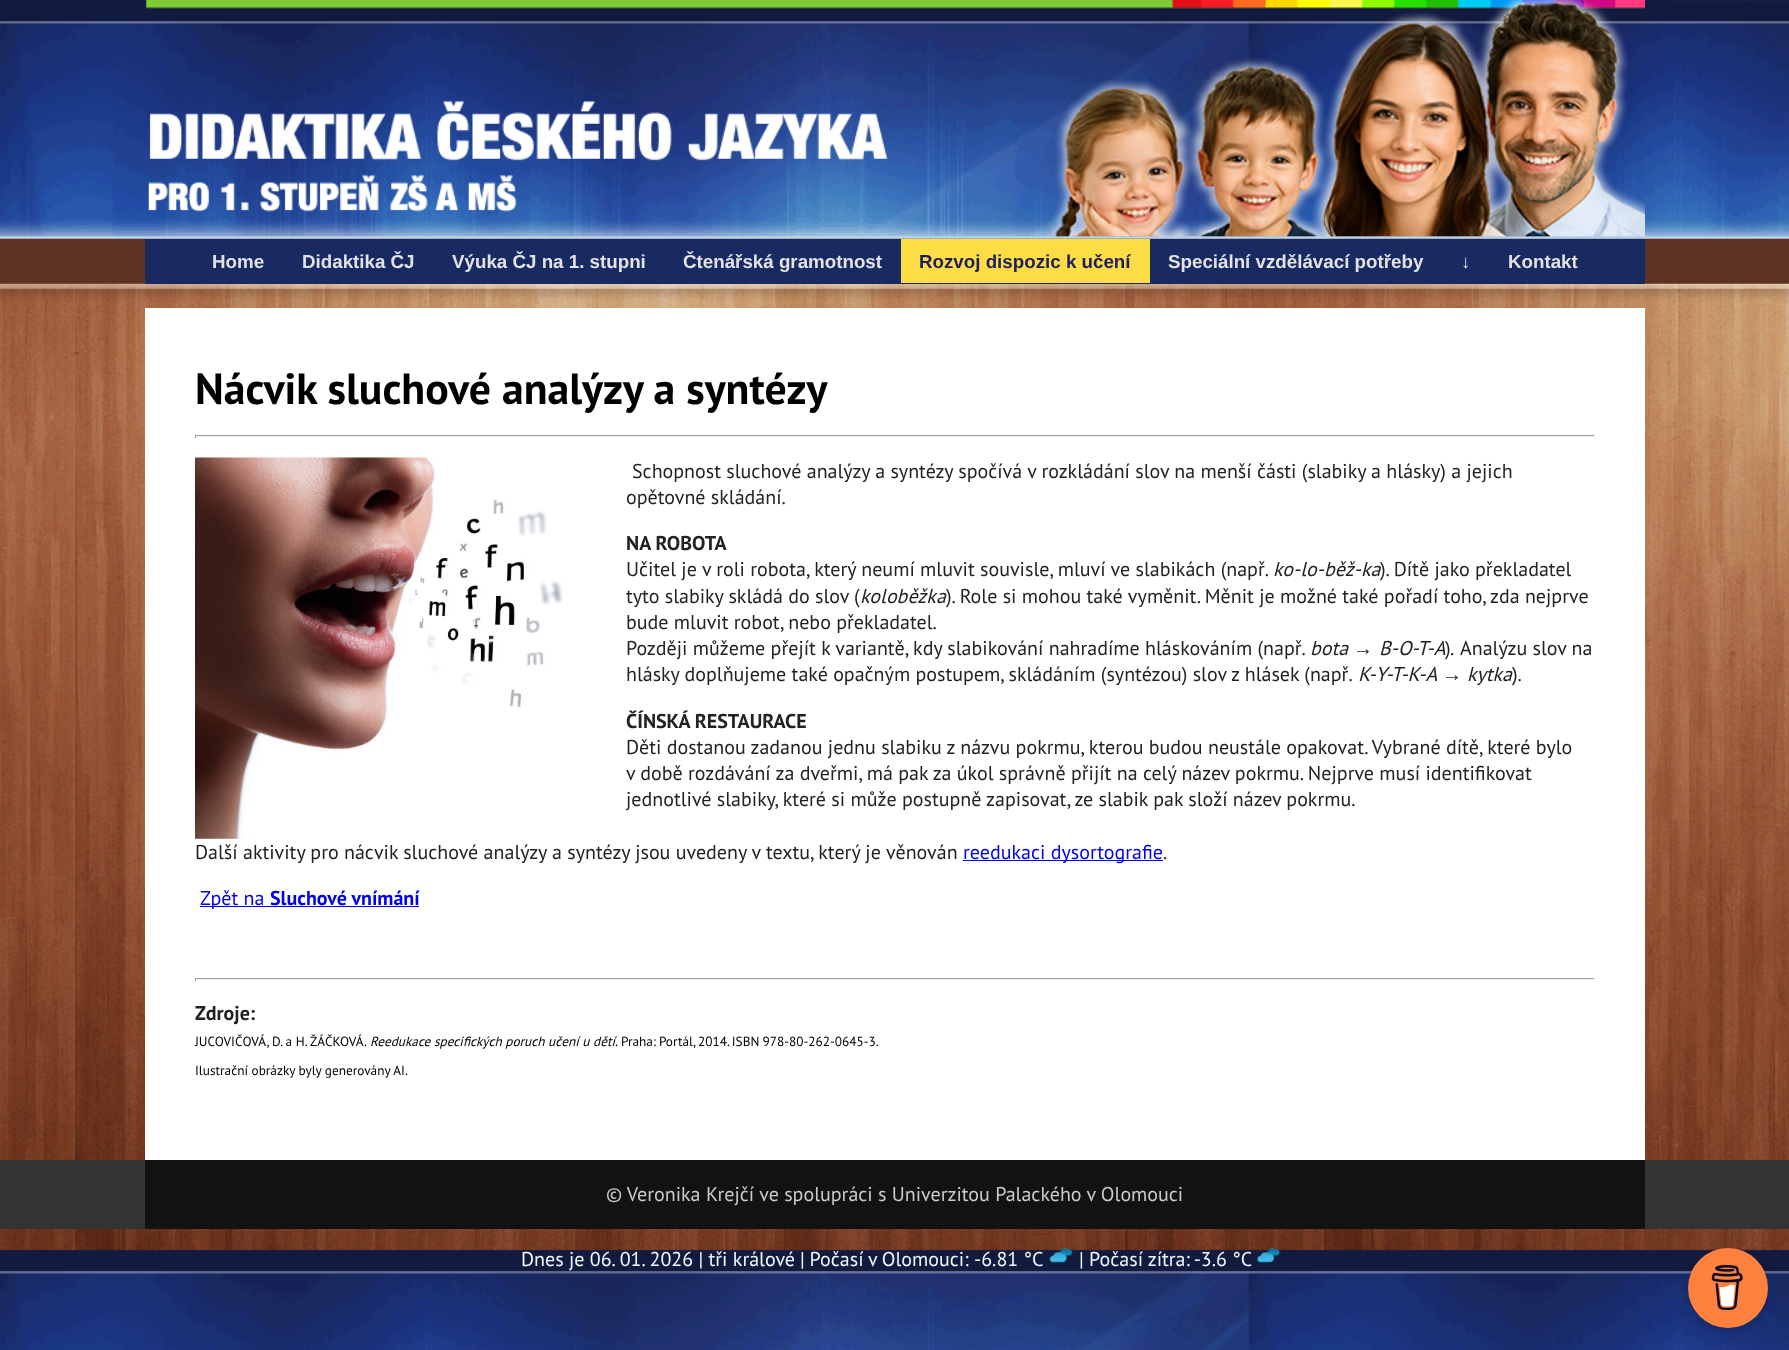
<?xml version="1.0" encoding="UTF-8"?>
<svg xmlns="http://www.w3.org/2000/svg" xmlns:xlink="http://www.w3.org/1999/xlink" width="1789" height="1350">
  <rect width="100%" height="100%" fill="#ffffff" />
  <image x="0" y="0" width="1789" height="1350" xlink:href="image1.png" />
  <image x="146" y="0" width="1499" height="237" xlink:href="image2.png" />
  <rect x="145" y="239" width="1500" height="45" fill="#192962" />
  <rect x="901" y="239" width="249" height="44" fill="#fcde44" />
  <rect x="145" y="308" width="1500" height="852" fill="#ffffff" />
  <rect x="195" y="435" width="1400" height="1" fill="#9f9f9f" />
  <rect x="1594" y="435" width="1" height="3" fill="#eeeeee" />
  <rect x="195" y="436" width="1400" height="1" fill="#eeeeee" />
  <rect x="195" y="435" width="1" height="3" fill="#9f9f9f" />
  <image x="195" y="457" width="368" height="382" xlink:href="image3.png" />
  <rect x="963" y="860" width="200" height="1" fill="#0000ee" />
  <rect x="200" y="906" width="219" height="1" fill="#0000ee" />
  <rect x="195" y="978" width="1400" height="1" fill="#9f9f9f" />
  <rect x="1594" y="978" width="1" height="3" fill="#eeeeee" />
  <rect x="195" y="979" width="1400" height="1" fill="#eeeeee" />
  <rect x="195" y="978" width="1" height="3" fill="#9f9f9f" />
  <rect y="1160" width="1789" height="69" fill="#333333" />
  <rect x="145" y="1160" width="1500" height="69" fill="#121212" />
  <image x="1049" y="1248" width="24" height="15" xlink:href="image4.png" />
  <image x="1257" y="1248" width="24" height="15" xlink:href="image5.png" />
  <rect x="1688" y="1253" width="80" height="80" rx="40" fill="#000000" fill-opacity="0.15" filter="blur(5px)" />
  <circle cx="1728" cy="1288" r="40" fill="#ff813f" />
  <image x="1711" y="1265" width="32" height="45" xlink:href="image6.png" />
  <text x="212" y="268" style="font-family: Liberation Sans; font-size: 18.75px; font-weight: bold; fill: #e3e3e6">Home</text>
  <text x="302" y="268" style="font-family: Liberation Sans; font-size: 18.75px; font-weight: bold; fill: #e3e3e6">Didaktika ČJ</text>
  <text x="452" y="268" style="font-family: Liberation Sans; font-size: 18.75px; font-weight: bold; fill: #e3e3e6">Výuka ČJ na 1. stupni</text>
  <text x="683" y="268" style="font-family: Liberation Sans; font-size: 18.75px; font-weight: bold; fill: #e3e3e6">Čtenářská gramotnost</text>
  <text x="919" y="268" style="font-family: Liberation Sans; font-size: 18.75px; font-weight: bold; fill: #1d1d63">Rozvoj dispozic k učení</text>
  <text x="1168" y="268" style="font-family: Liberation Sans; font-size: 18.75px; font-weight: bold; fill: #e3e3e6">Speciální vzdělávací potřeby</text>
  <text x="1461" y="268" style="font-family: Liberation Sans; font-size: 18.75px; font-weight: bold; fill: #e3e3e6">↓</text>
  <text x="1508" y="268" style="font-family: Liberation Sans; font-size: 18.75px; font-weight: bold; fill: #e3e3e6">Kontakt</text>
  <text x="195" y="404" style="font-family: PT Sans; font-size: 43.75px; font-weight: bold; fill: #000000">Nácvik sluchové analýzy a syntézy</text>
  <text x="632" y="478" style="font-family: PT Sans; font-size: 20px; fill: #222222">Schopnost sluchové analýzy a syntézy spočívá v rozkládání slov na menší části (slabiky a hlásky) a jejich</text>
  <text x="626" y="504" style="font-family: PT Sans; font-size: 20px; fill: #222222">opětovné skládání.</text>
  <text x="626" y="550" style="font-family: PT Sans; font-size: 20px; font-weight: bold; fill: #222222">NA ROBOTA</text>
  <text x="626" y="576" style="font-family: PT Sans; font-size: 20px; fill: #222222">Učitel je v roli robota, který neumí mluvit souvisle, mluví ve slabikách (např.</text>
  <text x="1273" y="576" style="font-family: PT Sans; font-size: 20px; font-style: italic; fill: #222222">ko-lo-běž-ka</text>
  <text x="1380" y="576" style="font-family: PT Sans; font-size: 20px; fill: #222222">). Dítě jako překladatel</text>
  <text x="626" y="603" style="font-family: PT Sans; font-size: 20px; fill: #222222">tyto slabiky skládá do slov (</text>
  <text x="860" y="603" style="font-family: PT Sans; font-size: 20px; font-style: italic; fill: #222222">koloběžka</text>
  <text x="946" y="603" style="font-family: PT Sans; font-size: 20px; fill: #222222">). Role si mohou také vyměnit. Měnit je možné také pořadí toho, zda nejprve</text>
  <text x="626" y="629" style="font-family: PT Sans; font-size: 20px; fill: #222222">bude mluvit robot, nebo překladatel.</text>
  <text x="626" y="655" style="font-family: PT Sans; font-size: 20px; fill: #222222">Později můžeme přejít k variantě, kdy slabikování nahradíme hláskováním (např.</text>
  <text x="1379" y="655" style="font-family: PT Sans; font-size: 20px; font-style: italic; fill: #222222">B-O-T-A .</text>
  <text x="1310" y="655" style="font-family: PT Sans; font-size: 20px; font-style: italic; fill: #222222">bota</text>
  <text x="1353" y="655" style="font-family: Liberation Serif; font-size: 20px; font-style: italic; fill: #222222">→</text>
  <text x="1445" y="655" style="font-family: PT Sans; font-size: 20px; fill: #222222">)</text>
  <text x="1460" y="655" style="font-family: PT Sans; font-size: 20px; fill: #222222">Analýzu slov na</text>
  <text x="626" y="681" style="font-family: PT Sans; font-size: 20px; fill: #222222">hlásky doplňujeme také opačným postupem, skládáním (syntézou) slov z hlásek (např.</text>
  <text x="1358" y="681" style="font-family: PT Sans; font-size: 20px; font-style: italic; fill: #222222">K-Y-T-K-A</text>
  <text x="1442" y="681" style="font-family: Liberation Serif; font-size: 20px; font-style: italic; fill: #222222">→</text>
  <text x="1467" y="681" style="font-family: PT Sans; font-size: 20px; font-style: italic; fill: #222222">kytka</text>
  <text x="1512" y="681" style="font-family: PT Sans; font-size: 20px; fill: #222222">).</text>
  <text x="626" y="728" style="font-family: PT Sans; font-size: 20px; font-weight: bold; fill: #222222">ČÍNSKÁ RESTAURACE</text>
  <text x="626" y="754" style="font-family: PT Sans; font-size: 20px; fill: #222222">Děti dostanou zadanou jednu slabiku z názvu pokrmu, kterou budou neustále opakovat. Vybrané dítě, které bylo</text>
  <text x="626" y="780" style="font-family: PT Sans; font-size: 20px; fill: #222222">v době rozdávání za dveřmi, má pak za úkol správně přijít na celý název pokrmu. Nejprve musí identifikovat</text>
  <text x="626" y="806" style="font-family: PT Sans; font-size: 20px; fill: #222222">jednotlivé slabiky, které si může postupně zapisovat, ze slabik pak složí název pokrmu.</text>
  <text x="195" y="859" style="font-family: PT Sans; font-size: 20px; fill: #222222">Další aktivity pro nácvik sluchové analýzy a syntézy jsou uvedeny v textu, který je věnován</text>
  <text x="963" y="859" style="font-family: PT Sans; font-size: 20px; fill: #0000ee">reedukaci dysortografie</text>
  <text x="1163" y="859" style="font-family: PT Sans; font-size: 20px; fill: #222222">.</text>
  <text x="200" y="905" style="font-family: PT Sans; font-size: 20px; fill: #0000ee">Zpět na</text>
  <text x="270" y="905" style="font-family: PT Sans; font-size: 20px; font-weight: bold; fill: #0000ee">Sluchové vnímání</text>
  <text x="195" y="1020" style="font-family: PT Sans; font-size: 20px; font-weight: bold; fill: #222222">Zdroje:</text>
  <text x="195" y="1046" style="font-family: PT Sans; font-size: 13.3px; fill: #000000">JUCOVIČOVÁ, D. a H. ŽÁČKOVÁ.</text>
  <text x="370" y="1046" style="font-family: PT Sans; font-size: 13.3px; font-style: italic; fill: #000000">Reedukace specifických poruch učení u dětí.</text>
  <text x="621" y="1046" word-spacing="-0.5" style="font-family: PT Sans; font-size: 13.3px; fill: #000000">Praha: Portál, 2014. ISBN 978-80-262-0645-3.</text>
  <text x="195" y="1075" style="font-family: PT Sans; font-size: 13.3px; fill: #000000">Ilustrační obrázky byly generovány AI.</text>
  <text x="606" y="1201" style="font-family: PT Sans; font-size: 20px; fill: #cccccc">© Veronika Krejčí ve spolupráci s Univerzitou Palackého v Olomouci</text>
  <text x="521" y="1266" style="font-family: PT Sans; font-size: 20px; fill: #f0f9fc">Dnes je 06. 01. 2026 | tři králové</text>
  <text x="800" y="1266" word-spacing="-0.5" style="font-family: PT Sans; font-size: 20px; fill: #f0f9fc">| Počasí v Olomouci:</text>
  <text x="974" y="1266" style="font-family: PT Sans; font-size: 20px; fill: #f0f9fc">-6.81 °C</text>
  <text x="1079" y="1266" style="font-family: PT Sans; font-size: 20px; fill: #f0f9fc">| Počasí zítra: -3.6 °C</text>
</svg>
